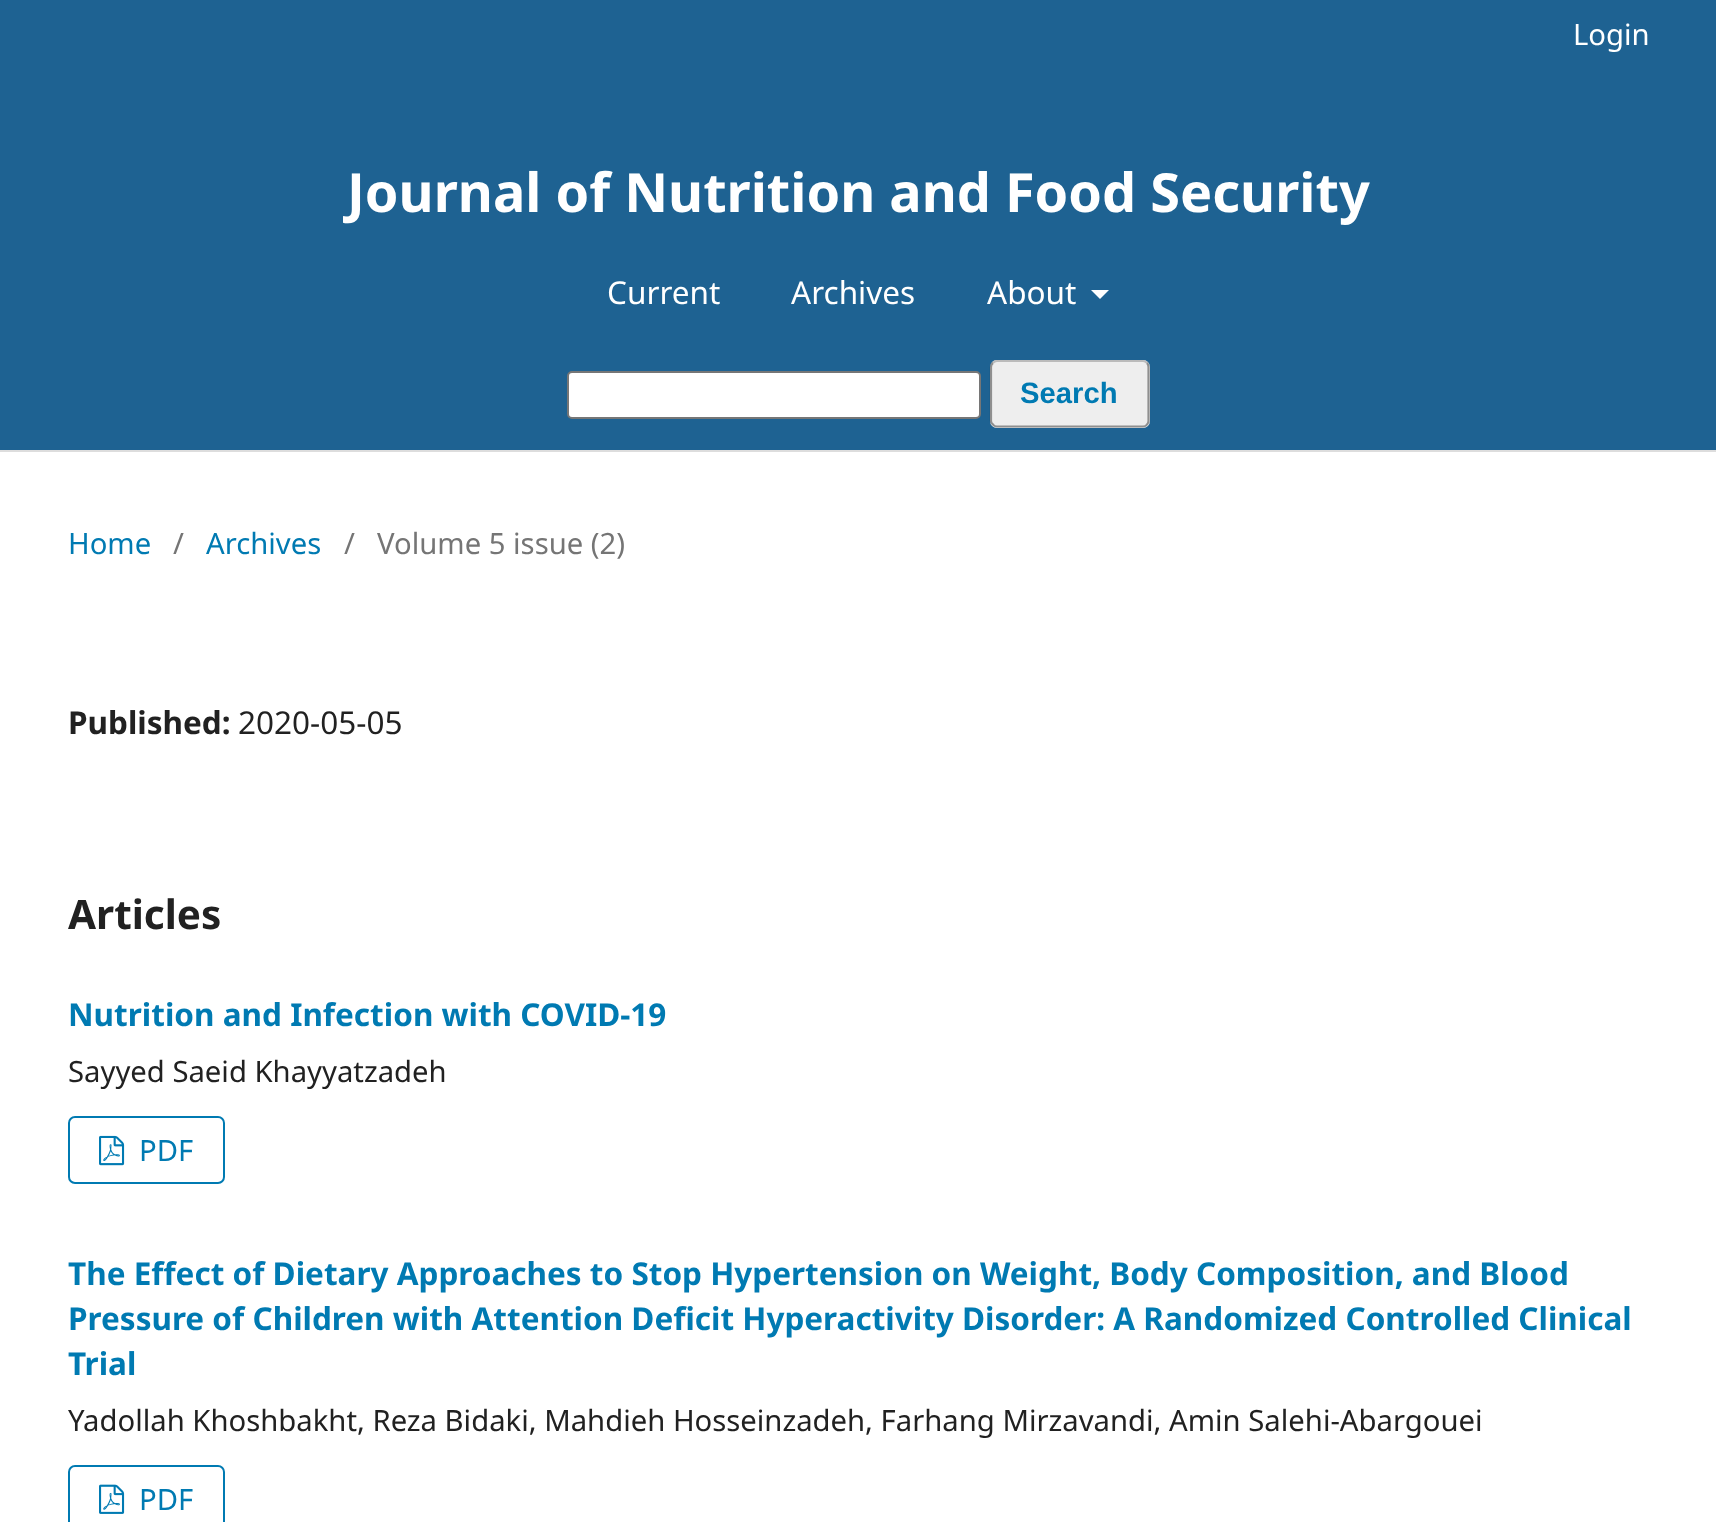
<?xml version="1.0" encoding="UTF-8"?>
<svg xmlns="http://www.w3.org/2000/svg" xmlns:xlink="http://www.w3.org/1999/xlink" width="1716" height="1522">
  <rect width="100%" height="100%" fill="#ffffff" />
  <rect width="1716" height="450" fill="#1e6292" />
  <rect y="450" width="1716" height="2" fill="#dddddd" />
  <path d="M 1091 290 h 18 l -9 9 z" fill="#ffffff" />
  <rect x="568" y="372" width="412" height="46" rx="4" fill="#ffffff" stroke="#767676" stroke-width="2" />
  <rect x="990" y="360" width="160" height="68" rx="7" fill="#eeeeee" />
  <path d="M 993 363 c 1 -1.5 2.5 -2 4 -2 h 146 c 1.5 0 3 0.5 4 2" fill="none" stroke="#bbbbbb" stroke-width="2.2" />
  <path d="M 1147 363 c 1 1 1.5 2.5 1.5 4 v 54 c 0 1 -0.5 2.5 -1.5 3.5 c -1 1.5 -2.5 2 -4 2 h -146 c -1.5 0 -3 -0.5 -4 -2 c -1.5 -1 -2 -2.5 -2 -3.5 v -54 c 0 -1.5 0.5 -3 2 -4" fill="none" stroke="#000000" stroke-opacity="0.4" stroke-width="2.2" />
  <rect x="69" y="1117" width="155" height="66" rx="6" fill="none" stroke="#007ab2" stroke-width="2" />
  <image x="99" y="1135" width="26" height="31" xlink:href="image1.png" />
  <rect x="69" y="1466" width="155" height="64" rx="6" fill="none" stroke="#007ab2" stroke-width="2" />
  <image x="99" y="1484" width="26" height="30" xlink:href="image2.png" />
  <text x="1573" y="45" style="font-family: Noto Sans; font-size: 29.25px; fill: #ffffff">Login</text>
  <text x="347" y="212" style="font-family: Noto Sans; font-size: 54px; font-weight: bold; fill: #ffffff">Journal of Nutrition and Food Security</text>
  <text x="607" y="304" style="font-family: Noto Sans; font-size: 31.5px; fill: #ffffff">Current</text>
  <text x="791" y="304" style="font-family: Noto Sans; font-size: 31.5px; fill: #ffffff">Archives</text>
  <text x="987" y="304" style="font-family: Noto Sans; font-size: 31.5px; fill: #ffffff">About</text>
  <text x="1020" y="403" style="font-family: Liberation Sans; font-size: 29.25px; font-weight: bold; fill: #007ab2">Search</text>
  <text x="68" y="554" style="font-family: Noto Sans; font-size: 29.25px; fill: #007ab2">Home</text>
  <text x="173" y="554" style="font-family: Noto Sans; font-size: 29.25px; fill: #757575">/</text>
  <text x="206" y="554" style="font-family: Noto Sans; font-size: 29.25px; fill: #007ab2">Archives</text>
  <text x="344" y="554" style="font-family: Noto Sans; font-size: 29.25px; fill: #757575">/</text>
  <text x="377" y="554" style="font-family: Noto Sans; font-size: 29.25px; fill: #757575">Volume 5 issue (2)</text>
  <text x="68" y="734" style="font-family: Noto Sans; font-size: 31.5px; font-weight: bold; fill: #212121">Published:</text>
  <text x="238" y="734" style="font-family: Noto Sans; font-size: 31.5px; fill: #212121">2020-05-05</text>
  <text x="68" y="929" style="font-family: Noto Sans; font-size: 40.5px; font-weight: bold; fill: #212121">Articles</text>
  <text x="68" y="1026" style="font-family: Noto Sans; font-size: 31.5px; font-weight: bold; fill: #007ab2">Nutrition and Infection with COVID-19</text>
  <text x="68" y="1082" style="font-family: Noto Sans; font-size: 29.25px; fill: #212121">Sayyed Saeid Khayyatzadeh</text>
  <text x="139" y="1161" style="font-family: Noto Sans; font-size: 29.25px; fill: #007ab2">PDF</text>
  <text x="68" y="1285" style="font-family: Noto Sans; font-size: 31.5px; font-weight: bold; fill: #007ab2">The Effect of Dietary Approaches to Stop Hypertension on Weight, Body Composition, and Blood</text>
  <text x="68" y="1330" style="font-family: Noto Sans; font-size: 31.5px; font-weight: bold; fill: #007ab2">Pressure of Children with Attention Deficit Hyperactivity Disorder: A Randomized Controlled Clinical</text>
  <text x="68" y="1375" style="font-family: Noto Sans; font-size: 31.5px; font-weight: bold; fill: #007ab2">Trial</text>
  <text x="68" y="1431" style="font-family: Noto Sans; font-size: 29.25px; fill: #212121">Yadollah Khoshbakht, Reza Bidaki, Mahdieh Hosseinzadeh, Farhang Mirzavandi, Amin Salehi-Abargouei</text>
  <text x="139" y="1510" style="font-family: Noto Sans; font-size: 29.25px; fill: #007ab2">PDF</text>
</svg>
